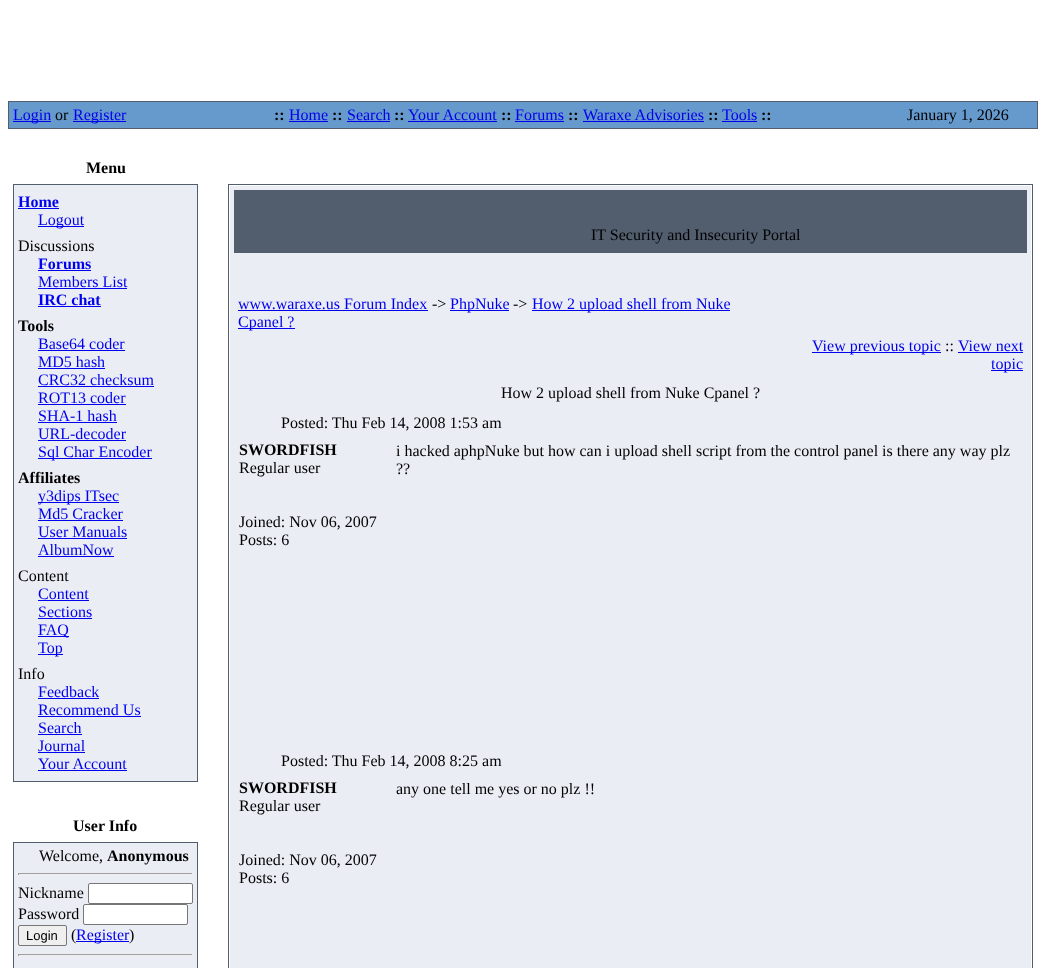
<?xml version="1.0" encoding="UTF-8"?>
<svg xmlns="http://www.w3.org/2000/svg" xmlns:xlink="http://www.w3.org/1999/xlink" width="1046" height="968">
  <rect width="100%" height="100%" fill="#ffffff" />
  <rect x="8" y="101" width="1030" height="28" fill="#525e6e" />
  <rect x="9" y="102" width="1028" height="26" fill="#6699cc" />
  <rect x="13" y="121" width="38" height="1" fill="#0000ee" />
  <rect x="73" y="121" width="53" height="1" fill="#0000ee" />
  <rect x="289" y="121" width="39" height="1" fill="#0000ee" />
  <rect x="347" y="121" width="43" height="1" fill="#0000ee" />
  <rect x="408" y="121" width="89" height="1" fill="#0000ee" />
  <rect x="515" y="121" width="49" height="1" fill="#0000ee" />
  <rect x="583" y="121" width="121" height="1" fill="#0000ee" />
  <rect x="722" y="121" width="35" height="1" fill="#0000ee" />
  <rect x="13" y="184" width="185" height="598" fill="#525e6e" />
  <rect x="14" y="185" width="183" height="596" fill="#eaedf4" />
  <rect x="18" y="208" width="41" height="1" fill="#0000ee" />
  <rect x="38" y="226" width="46" height="1" fill="#0000ee" />
  <rect x="38" y="270" width="53" height="1" fill="#0000ee" />
  <rect x="38" y="288" width="89" height="1" fill="#0000ee" />
  <rect x="38" y="306" width="63" height="1" fill="#0000ee" />
  <rect x="38" y="350" width="87" height="1" fill="#0000ee" />
  <rect x="38" y="368" width="67" height="1" fill="#0000ee" />
  <rect x="38" y="386" width="116" height="1" fill="#0000ee" />
  <rect x="38" y="404" width="88" height="1" fill="#0000ee" />
  <rect x="38" y="422" width="79" height="1" fill="#0000ee" />
  <rect x="38" y="440" width="88" height="1" fill="#0000ee" />
  <rect x="38" y="458" width="114" height="1" fill="#0000ee" />
  <rect x="38" y="502" width="81" height="1" fill="#0000ee" />
  <rect x="38" y="520" width="85" height="1" fill="#0000ee" />
  <rect x="38" y="538" width="89" height="1" fill="#0000ee" />
  <rect x="38" y="556" width="76" height="1" fill="#0000ee" />
  <rect x="38" y="600" width="51" height="1" fill="#0000ee" />
  <rect x="38" y="618" width="54" height="1" fill="#0000ee" />
  <rect x="38" y="636" width="31" height="1" fill="#0000ee" />
  <rect x="38" y="654" width="25" height="1" fill="#0000ee" />
  <rect x="38" y="698" width="61" height="1" fill="#0000ee" />
  <rect x="38" y="716" width="103" height="1" fill="#0000ee" />
  <rect x="38" y="734" width="44" height="1" fill="#0000ee" />
  <rect x="38" y="752" width="47" height="1" fill="#0000ee" />
  <rect x="38" y="770" width="89" height="1" fill="#0000ee" />
  <rect x="13" y="842" width="185" height="126" fill="#525e6e" />
  <rect x="14" y="843" width="183" height="125" fill="#eaedf4" />
  <rect x="18" y="873" width="175" height="1" fill="#9f9f9f" />
  <rect x="192" y="873" width="1" height="2" fill="#eeeeee" />
  <rect x="18" y="874" width="175" height="1" fill="#eeeeee" />
  <rect x="18" y="873" width="1" height="2" fill="#9f9f9f" />
  <rect x="88.5" y="883.5" width="104" height="20" rx="1.5" fill="#ffffff" stroke="#767676" />
  <rect x="83.5" y="904.5" width="104" height="20" rx="1.5" fill="#ffffff" stroke="#767676" />
  <rect x="18.5" y="925.5" width="48" height="20" rx="1.5" fill="#efefef" stroke="#767676" />
  <rect x="76" y="941" width="53" height="1" fill="#0000ee" />
  <rect x="18" y="954" width="175" height="1" fill="#9f9f9f" />
  <rect x="192" y="954" width="1" height="2" fill="#eeeeee" />
  <rect x="18" y="955" width="175" height="1" fill="#eeeeee" />
  <rect x="18" y="954" width="1" height="2" fill="#9f9f9f" />
  <rect x="228" y="184" width="805" height="784" fill="#525e6e" />
  <rect x="229" y="185" width="803" height="783" fill="#ffffff" />
  <rect x="230" y="186" width="801" height="782" fill="#eaedf4" />
  <rect x="234" y="190" width="793" height="63" fill="#525e6e" />
  <rect x="238" y="310" width="190" height="1" fill="#0000ee" />
  <rect x="450" y="310" width="59" height="1" fill="#0000ee" />
  <rect x="532" y="310" width="198" height="1" fill="#0000ee" />
  <rect x="238" y="328" width="57" height="1" fill="#0000ee" />
  <rect x="812" y="352" width="129" height="1" fill="#0000ee" />
  <rect x="958" y="352" width="65" height="1" fill="#0000ee" />
  <rect x="991" y="370" width="32" height="1" fill="#0000ee" />
  <text x="13" y="120" style="font-family: Liberation Serif; font-size: 16px; fill: #0000ee">Login</text>
  <text x="55" y="120" style="font-family: Liberation Serif; font-size: 16px; fill: #000000">or</text>
  <text x="73" y="120" style="font-family: Liberation Serif; font-size: 16px; fill: #0000ee">Register</text>
  <text x="274" y="120" style="font-family: Liberation Serif; font-size: 16px; font-weight: bold; fill: #000000">::</text>
  <text x="289" y="120" style="font-family: Liberation Serif; font-size: 16px; fill: #0000ee">Home</text>
  <text x="332" y="120" style="font-family: Liberation Serif; font-size: 16px; font-weight: bold; fill: #000000">::</text>
  <text x="347" y="120" style="font-family: Liberation Serif; font-size: 16px; fill: #0000ee">Search</text>
  <text x="394" y="120" style="font-family: Liberation Serif; font-size: 16px; font-weight: bold; fill: #000000">::</text>
  <text x="408" y="120" style="font-family: Liberation Serif; font-size: 16px; fill: #0000ee">Your Account</text>
  <text x="501" y="120" style="font-family: Liberation Serif; font-size: 16px; font-weight: bold; fill: #000000">::</text>
  <text x="515" y="120" style="font-family: Liberation Serif; font-size: 16px; fill: #0000ee">Forums</text>
  <text x="568" y="120" style="font-family: Liberation Serif; font-size: 16px; font-weight: bold; fill: #000000">::</text>
  <text x="583" y="120" style="font-family: Liberation Serif; font-size: 16px; fill: #0000ee">Waraxe Advisories</text>
  <text x="708" y="120" style="font-family: Liberation Serif; font-size: 16px; font-weight: bold; fill: #000000">::</text>
  <text x="722" y="120" style="font-family: Liberation Serif; font-size: 16px; fill: #0000ee">Tools</text>
  <text x="761" y="120" style="font-family: Liberation Serif; font-size: 16px; font-weight: bold; fill: #000000">::</text>
  <text x="907" y="120" style="font-family: Liberation Serif; font-size: 16px; fill: #000000">January 1, 2026</text>
  <text x="86" y="173" style="font-family: Liberation Serif; font-size: 16px; font-weight: bold; fill: #000000">Menu</text>
  <text x="18" y="207" style="font-family: Liberation Serif; font-size: 16px; font-weight: bold; fill: #0000ee">Home</text>
  <text x="38" y="225" style="font-family: Liberation Serif; font-size: 16px; fill: #0000ee">Logout</text>
  <text x="18" y="251" style="font-family: Liberation Serif; font-size: 16px; fill: #000000">Discussions</text>
  <text x="38" y="269" style="font-family: Liberation Serif; font-size: 16px; font-weight: bold; fill: #0000ee">Forums</text>
  <text x="38" y="287" style="font-family: Liberation Serif; font-size: 16px; fill: #0000ee">Members List</text>
  <text x="38" y="305" style="font-family: Liberation Serif; font-size: 16px; font-weight: bold; fill: #0000ee">IRC chat</text>
  <text x="18" y="331" style="font-family: Liberation Serif; font-size: 16px; font-weight: bold; fill: #000000">Tools</text>
  <text x="38" y="349" style="font-family: Liberation Serif; font-size: 16px; fill: #0000ee">Base64 coder</text>
  <text x="38" y="367" style="font-family: Liberation Serif; font-size: 16px; fill: #0000ee">MD5 hash</text>
  <text x="38" y="385" style="font-family: Liberation Serif; font-size: 16px; fill: #0000ee">CRC32 checksum</text>
  <text x="38" y="403" style="font-family: Liberation Serif; font-size: 16px; fill: #0000ee">ROT13 coder</text>
  <text x="38" y="421" style="font-family: Liberation Serif; font-size: 16px; fill: #0000ee">SHA-1 hash</text>
  <text x="38" y="439" style="font-family: Liberation Serif; font-size: 16px; fill: #0000ee">URL-decoder</text>
  <text x="38" y="457" style="font-family: Liberation Serif; font-size: 16px; fill: #0000ee">Sql Char Encoder</text>
  <text x="18" y="483" style="font-family: Liberation Serif; font-size: 16px; font-weight: bold; fill: #000000">Affiliates</text>
  <text x="38" y="501" style="font-family: Liberation Serif; font-size: 16px; fill: #0000ee">y3dips ITsec</text>
  <text x="38" y="519" style="font-family: Liberation Serif; font-size: 16px; fill: #0000ee">Md5 Cracker</text>
  <text x="38" y="537" style="font-family: Liberation Serif; font-size: 16px; fill: #0000ee">User Manuals</text>
  <text x="38" y="555" style="font-family: Liberation Serif; font-size: 16px; fill: #0000ee">AlbumNow</text>
  <text x="18" y="581" style="font-family: Liberation Serif; font-size: 16px; fill: #000000">Content</text>
  <text x="38" y="599" style="font-family: Liberation Serif; font-size: 16px; fill: #0000ee">Content</text>
  <text x="38" y="617" style="font-family: Liberation Serif; font-size: 16px; fill: #0000ee">Sections</text>
  <text x="38" y="635" style="font-family: Liberation Serif; font-size: 16px; fill: #0000ee">FAQ</text>
  <text x="38" y="653" style="font-family: Liberation Serif; font-size: 16px; fill: #0000ee">Top</text>
  <text x="18" y="679" style="font-family: Liberation Serif; font-size: 16px; fill: #000000">Info</text>
  <text x="38" y="697" style="font-family: Liberation Serif; font-size: 16px; fill: #0000ee">Feedback</text>
  <text x="38" y="715" style="font-family: Liberation Serif; font-size: 16px; fill: #0000ee">Recommend Us</text>
  <text x="38" y="733" style="font-family: Liberation Serif; font-size: 16px; fill: #0000ee">Search</text>
  <text x="38" y="751" style="font-family: Liberation Serif; font-size: 16px; fill: #0000ee">Journal</text>
  <text x="38" y="769" style="font-family: Liberation Serif; font-size: 16px; fill: #0000ee">Your Account</text>
  <text x="73" y="831" style="font-family: Liberation Serif; font-size: 16px; font-weight: bold; fill: #000000">User Info</text>
  <text x="39" y="861" style="font-family: Liberation Serif; font-size: 16px; fill: #000000">Welcome,</text>
  <text x="107" y="861" style="font-family: Liberation Serif; font-size: 16px; font-weight: bold; fill: #000000">Anonymous</text>
  <text x="18" y="898" style="font-family: Liberation Serif; font-size: 16px; fill: #000000">Nickname</text>
  <text x="18" y="919" style="font-family: Liberation Serif; font-size: 16px; fill: #000000">Password</text>
  <text x="26" y="940" style="font-family: Liberation Sans; font-size: 13px; fill: #000000">Login</text>
  <text x="71" y="940" style="font-family: Liberation Serif; font-size: 16px; fill: #000000">(</text>
  <text x="76" y="940" style="font-family: Liberation Serif; font-size: 16px; fill: #0000ee">Register</text>
  <text x="129" y="940" style="font-family: Liberation Serif; font-size: 16px; fill: #000000">)</text>
  <text x="591" y="240" style="font-family: Liberation Serif; font-size: 16px; fill: #000000">IT Security and Insecurity Portal</text>
  <text x="238" y="309" style="font-family: Liberation Serif; font-size: 16px; fill: #0000ee">www.waraxe.us Forum Index</text>
  <text x="432" y="309" style="font-family: Liberation Serif; font-size: 16px; fill: #000000">-&gt;</text>
  <text x="450" y="309" style="font-family: Liberation Serif; font-size: 16px; fill: #0000ee">PhpNuke</text>
  <text x="513" y="309" style="font-family: Liberation Serif; font-size: 16px; fill: #000000">-&gt;</text>
  <text x="532" y="309" style="font-family: Liberation Serif; font-size: 16px; fill: #0000ee">How 2 upload shell from Nuke</text>
  <text x="238" y="327" style="font-family: Liberation Serif; font-size: 16px; fill: #0000ee">Cpanel ?</text>
  <text x="812" y="351" style="font-family: Liberation Serif; font-size: 16px; fill: #0000ee">View previous topic</text>
  <text x="945" y="351" style="font-family: Liberation Serif; font-size: 16px; fill: #000000">::</text>
  <text x="958" y="351" style="font-family: Liberation Serif; font-size: 16px; fill: #0000ee">View next</text>
  <text x="991" y="369" style="font-family: Liberation Serif; font-size: 16px; fill: #0000ee">topic</text>
  <text x="501" y="398" style="font-family: Liberation Serif; font-size: 16px; fill: #000000">How 2 upload shell from Nuke Cpanel ?</text>
  <text x="281" y="428" style="font-family: Liberation Serif; font-size: 16px; fill: #000000">Posted: Thu Feb 14, 2008 1:53 am</text>
  <text x="239" y="455" style="font-family: Liberation Serif; font-size: 16px; font-weight: bold; fill: #000000">SWORDFISH</text>
  <text x="239" y="473" style="font-family: Liberation Serif; font-size: 16px; fill: #000000">Regular user</text>
  <text x="239" y="527" style="font-family: Liberation Serif; font-size: 16px; fill: #000000">Joined: Nov 06, 2007</text>
  <text x="239" y="545" style="font-family: Liberation Serif; font-size: 16px; fill: #000000">Posts: 6</text>
  <text x="396" y="456" style="font-family: Liberation Serif; font-size: 16px; fill: #000000">i hacked aphpNuke but how can i upload shell script from the control panel is there any way plz</text>
  <text x="396" y="474" style="font-family: Liberation Serif; font-size: 16px; fill: #000000">??</text>
  <text x="281" y="766" style="font-family: Liberation Serif; font-size: 16px; fill: #000000">Posted: Thu Feb 14, 2008 8:25 am</text>
  <text x="239" y="793" style="font-family: Liberation Serif; font-size: 16px; font-weight: bold; fill: #000000">SWORDFISH</text>
  <text x="239" y="811" style="font-family: Liberation Serif; font-size: 16px; fill: #000000">Regular user</text>
  <text x="239" y="865" style="font-family: Liberation Serif; font-size: 16px; fill: #000000">Joined: Nov 06, 2007</text>
  <text x="239" y="883" style="font-family: Liberation Serif; font-size: 16px; fill: #000000">Posts: 6</text>
  <text x="396" y="794" style="font-family: Liberation Serif; font-size: 16px; fill: #000000">any one tell me yes or no plz !!</text>
</svg>
